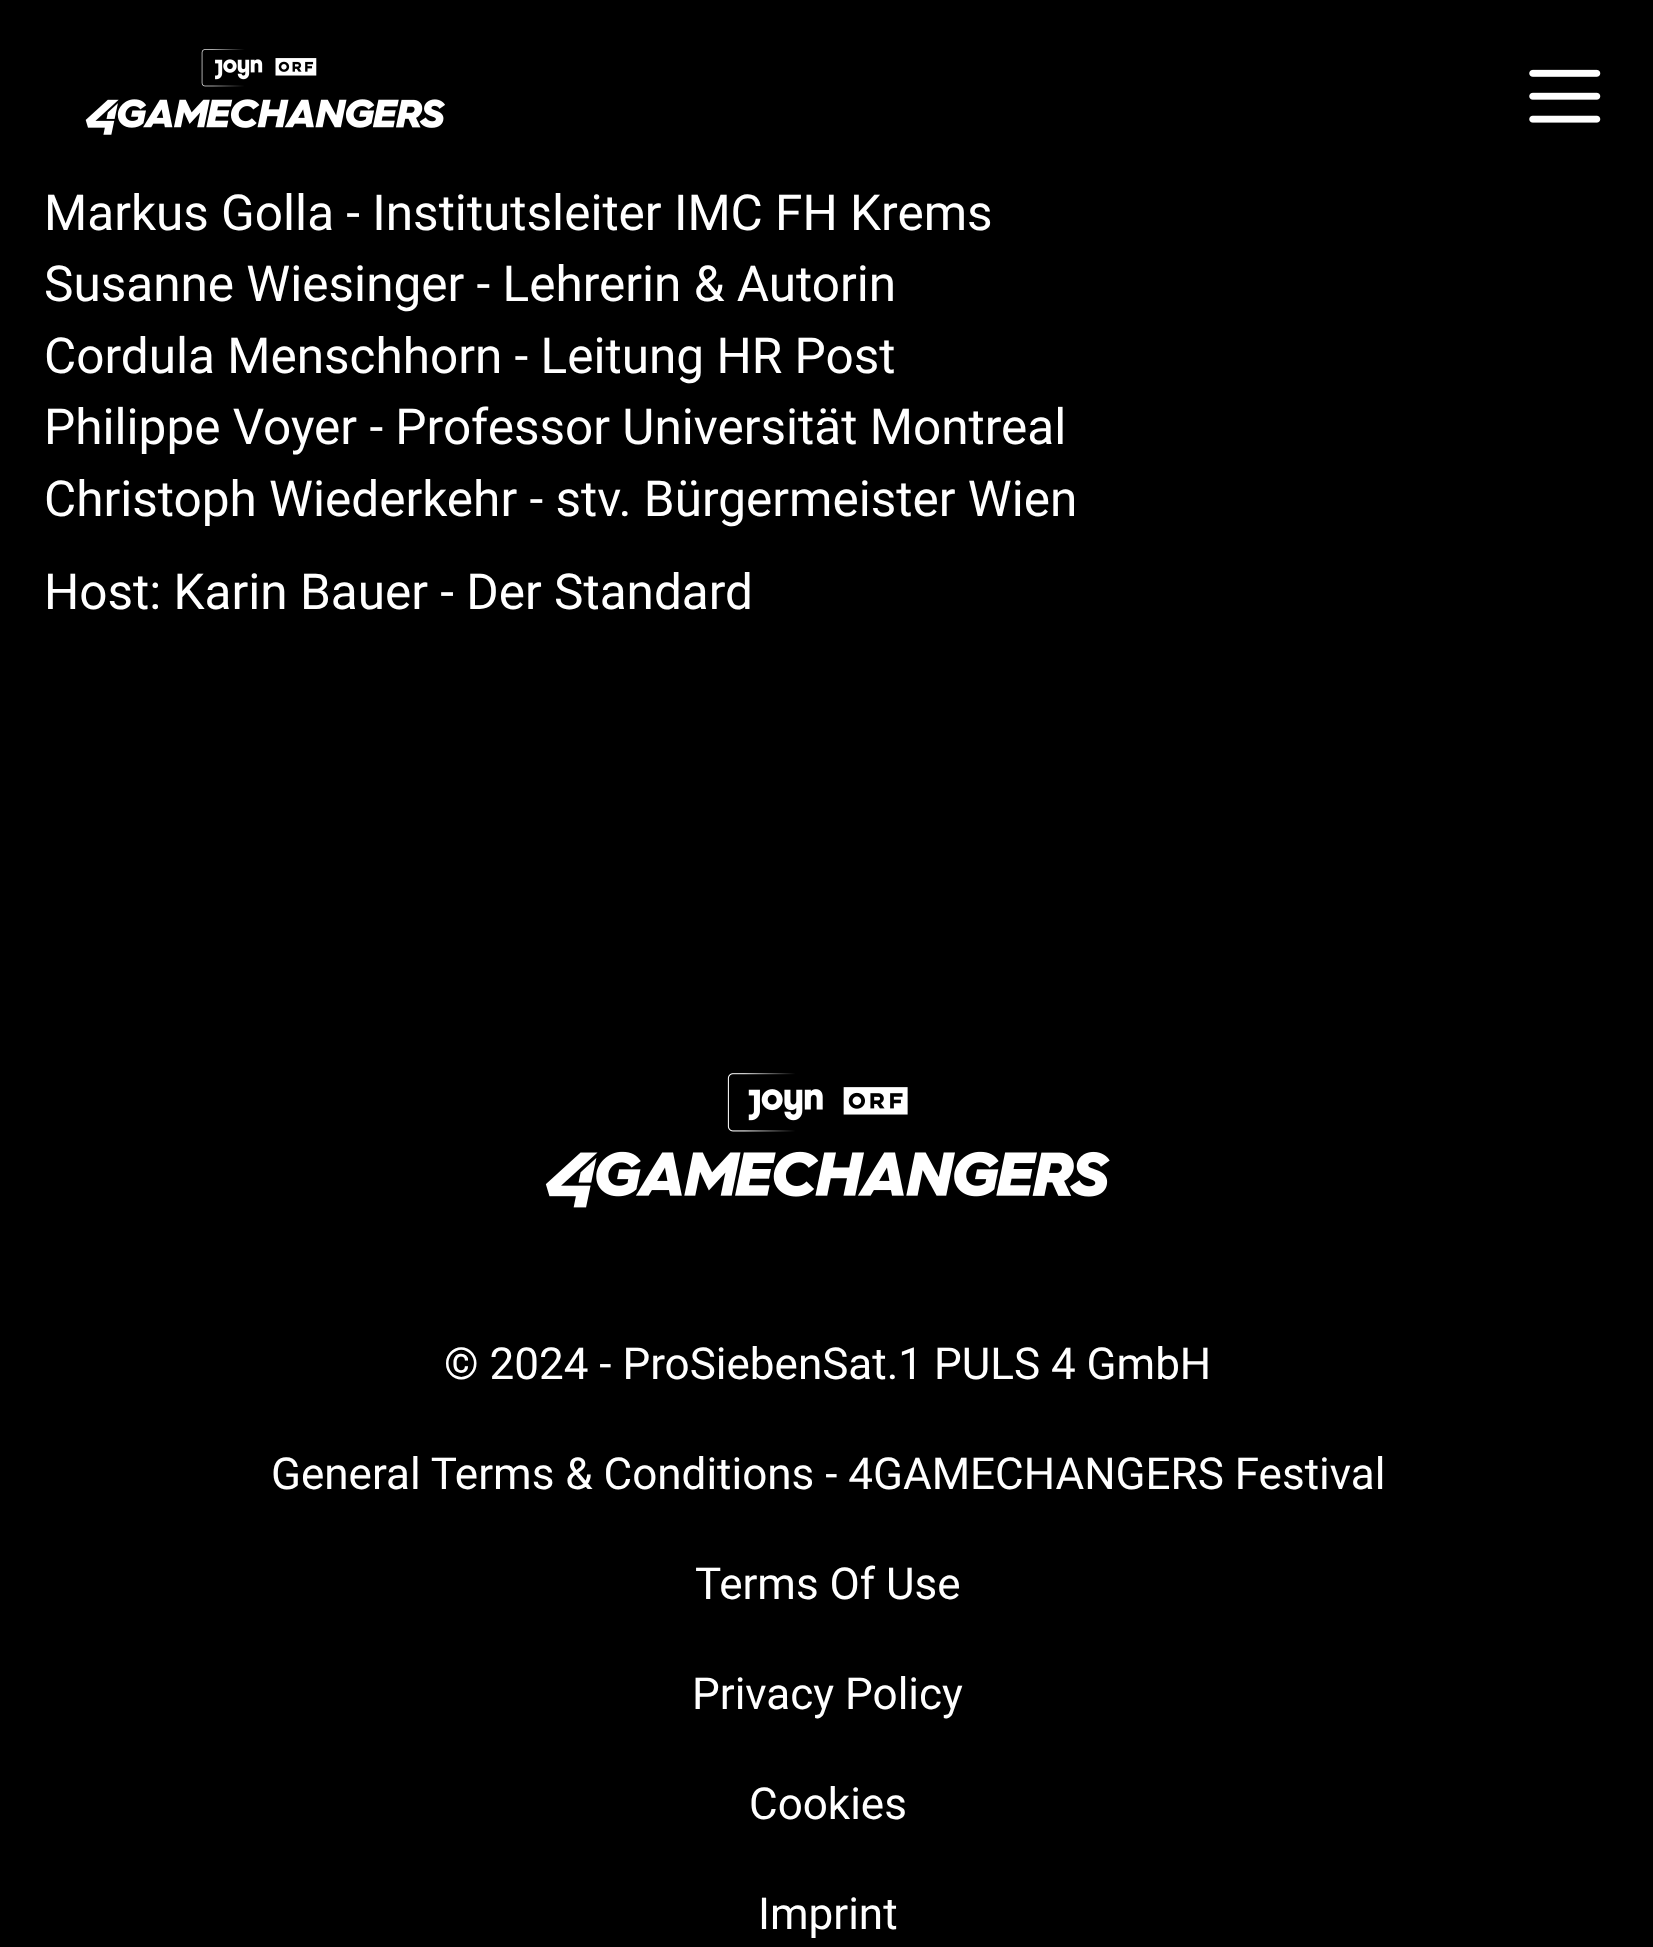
<?xml version="1.0" encoding="UTF-8"?>
<svg xmlns="http://www.w3.org/2000/svg" xmlns:xlink="http://www.w3.org/1999/xlink" width="1653" height="1947">
  <rect width="100%" height="100%" fill="#000000" />
  <image x="85" y="49" width="360" height="86" xlink:href="image1.png" />
  <image x="1529" y="69" width="72" height="54" xlink:href="image2.png" />
  <image x="545" y="1073" width="565" height="135" xlink:href="image3.png" />
  <text x="44" y="230" style="font-family: Roboto; font-size: 49.5px; fill: #ffffff">Markus Golla - Institutsleiter IMC FH Krems</text>
  <rect x="134" y="192" width="427" height="1" fill="#000000" />
  <text x="44" y="301" style="font-family: Roboto; font-size: 49.5px; fill: #ffffff">Susanne Wiesinger - Lehrerin &amp; Autorin</text>
  <text x="44" y="373" style="font-family: Roboto; font-size: 49.5px; fill: #ffffff">Cordula Menschhorn - Leitung HR Post</text>
  <text x="44" y="444" style="font-family: Roboto; font-size: 49.5px; fill: #ffffff">Philippe Voyer - Professor Universität Montreal</text>
  <text x="44" y="516" style="font-family: Roboto; font-size: 49.5px; fill: #ffffff">Christoph Wiederkehr - stv. Bürgermeister Wien</text>
  <text x="44" y="609" style="font-family: Roboto; font-size: 49.5px; fill: #ffffff">Host: Karin Bauer - Der Standard</text>
  <text x="444" y="1379" style="font-family: Roboto; font-size: 44px; fill: #ffffff">© 2024 - ProSiebenSat.1 PULS 4 GmbH</text>
  <text x="271" y="1489" style="font-family: Roboto; font-size: 44px; fill: #ffffff">General Terms &amp; Conditions - 4GAMECHANGERS Festival</text>
  <text x="695" y="1599" style="font-family: Roboto; font-size: 44px; fill: #ffffff">Terms Of Use</text>
  <text x="692" y="1709" style="font-family: Roboto; font-size: 44px; fill: #ffffff">Privacy Policy</text>
  <text x="749" y="1819" style="font-family: Roboto; font-size: 44px; fill: #ffffff">Cookies</text>
  <text x="758" y="1929" style="font-family: Roboto; font-size: 44px; fill: #ffffff">Imprint</text>
</svg>
